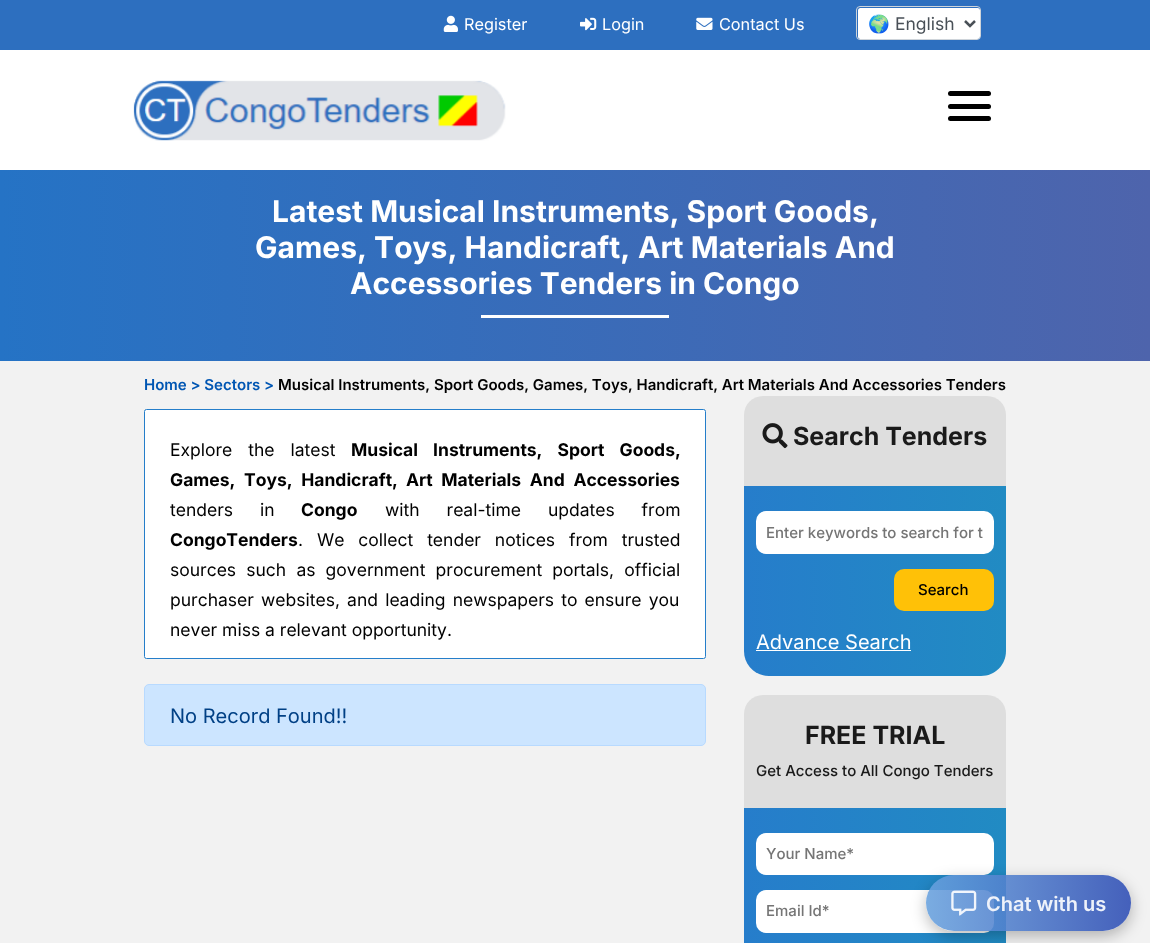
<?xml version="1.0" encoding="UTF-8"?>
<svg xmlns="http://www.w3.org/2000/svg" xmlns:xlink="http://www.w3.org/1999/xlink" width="1150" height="943">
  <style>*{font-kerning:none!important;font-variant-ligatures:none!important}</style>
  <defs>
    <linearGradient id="g1" gradientUnits="userSpaceOnUse" x1="0" y1="266" x2="1150" y2="266"><stop offset="0" stop-color="#2573c5" /><stop offset="1" stop-color="#4e64ac" /></linearGradient>
    <linearGradient id="g2" gradientUnits="userSpaceOnUse" x1="744" y1="581" x2="1006" y2="581"><stop offset="0" stop-color="#267dcb" /><stop offset="1" stop-color="#218bc3" /></linearGradient>
    <linearGradient id="g3" gradientUnits="userSpaceOnUse" x1="744" y1="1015" x2="1006" y2="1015"><stop offset="0" stop-color="#267dcb" /><stop offset="1" stop-color="#218bc3" /></linearGradient>
    <clipPath id="clip1"><path d="M 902 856 h 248 v 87 h -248 z m 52 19 h 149 c 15.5 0 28 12.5 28 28 c 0 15.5 -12.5 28 -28 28 h -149 c -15.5 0 -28 -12.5 -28 -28 c 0 -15.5 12.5 -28 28 -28 z" clip-rule="evenodd" /></clipPath>
    <linearGradient id="g4" gradientUnits="userSpaceOnUse" x1="926" y1="903" x2="1131" y2="903"><stop offset="0" stop-color="#68a1dd" stop-opacity="0.88" /><stop offset="1" stop-color="#3150b5" stop-opacity="0.9" /></linearGradient>
    <clipPath id="clip2"><rect x="869" y="11" width="85" height="24" /></clipPath>
  </defs>
  <rect width="100%" height="100%" fill="#ffffff" />
  <rect width="1150" height="50" fill="#2d6fbf" />
  <image x="443" y="15" width="15" height="17" xlink:href="image1.png" />
  <image x="580" y="17" width="17" height="14" xlink:href="image2.png" />
  <image x="696" y="17" width="17" height="13" xlink:href="image3.png" />
  <rect x="858" y="8" width="122" height="31" rx="2.5" fill="#ffffff" />
  <rect x="856.5" y="6.5" width="124" height="33" rx="3.5" fill="none" stroke="#ced4da" />
  <path d="M 965 21 l 5 5 l 5 -5" fill="none" stroke="#495057" stroke-width="2.5" />
  <image x="133" y="80" width="373" height="61" xlink:href="image4.png" />
  <rect x="948" y="116" width="43" height="5" rx="2.5" fill="#000000" />
  <rect x="948" y="91" width="43" height="5" rx="2.5" fill="#000000" />
  <rect x="948" y="104" width="43" height="5" rx="2.5" fill="#000000" />
  <rect y="170" width="1150" height="191" fill="url(#g1)" />
  <rect x="481" y="315" width="188" height="3" fill="#ffffff" />
  <rect y="361" width="1150" height="582" fill="#f2f2f2" />
  <rect x="144.5" y="409.5" width="561" height="249" rx="2" fill="#ffffff" stroke="#257eca" />
  <rect x="144.5" y="684.5" width="561" height="61" rx="4.5" fill="#cce5ff" stroke="#b8daff" />
  <path d="M 763 396 h 224 c 10.5 0 19 8.5 19 19 v 71 h -262 v -71 c 0 -10.5 8.5 -19 19 -19 z" fill="#dedede" />
  <image x="762" y="423" width="26" height="26" xlink:href="image5.png" />
  <path d="M 744 486 h 262 v 165 c 0 14 -11 25 -25 25 h -212 c -14 0 -25 -11 -25 -25 z" fill="url(#g2)" />
  <rect x="756" y="511" width="238" height="43" rx="10" fill="#ffffff" />
  <rect x="894" y="569" width="100" height="42" rx="10" fill="#ffc107" />
  <rect x="756" y="650" width="155" height="1" fill="#ffffff" />
  <path d="M 763 695 h 224 c 10.5 0 19 8.5 19 19 v 94 h -262 v -94 c 0 -10.5 8.5 -19 19 -19 z" fill="#dedede" />
  <rect x="744" y="808" width="262" height="135" fill="url(#g3)" />
  <rect x="756" y="833" width="238" height="42" rx="10" fill="#ffffff" />
  <rect x="756" y="890" width="238" height="43" rx="10" fill="#ffffff" />
  <g clip-path="url(#clip1)">
    <rect x="926" y="880" width="205" height="56" rx="28" fill="#000000" fill-opacity="0.27" filter="blur(7.5px)" />
  </g>
  <rect x="926" y="875" width="205" height="56" rx="28" fill="url(#g4)" />
  <image x="951" y="890" width="26" height="26" xlink:href="image6.png" />
  <text x="464" y="30" style="font-family: Inter; font-size: 16.25px; fill: #ffffff">Register</text>
  <text x="602" y="30" style="font-family: Inter; font-size: 16.25px; fill: #ffffff">Login</text>
  <text x="719" y="30" style="font-family: Inter; font-size: 16.25px; fill: #ffffff">Contact Us</text>
  <g clip-path="url(#clip2)">
    <text x="868" y="30" style="font-family: Noto Color Emoji; font-size: 17.5px; fill: #495057">🌍</text>
  </g>
  <text x="895" y="30" style="font-family: Inter; font-size: 17.5px; fill: #495057">English</text>
  <text x="272" y="222" style="font-family: Inter; font-size: 30px; font-weight: bold; fill: #ffffff">Latest Musical Instruments, Sport Goods,</text>
  <text x="255" y="258" style="font-family: Inter; font-size: 30px; font-weight: bold; fill: #ffffff">Games, Toys, Handicraft,</text>
  <text x="638" y="258" style="font-family: Inter; font-size: 30px; font-weight: bold; fill: #ffffff">Art Materials And</text>
  <text x="350" y="294" style="font-family: Inter; font-size: 30px; font-weight: bold; fill: #ffffff">Accessories Tenders in Congo</text>
  <text x="144" y="390" style="font-family: Inter; font-size: 15px; font-weight: 600; fill: #0056b3">Home &gt; Sectors &gt;</text>
  <text x="278" y="390" style="font-family: Inter; font-size: 15px; font-weight: 600; fill: #000000">Musical Instruments, Sport Goods, Games, Toys, Handicraft, Art Materials And Accessories Tenders</text>
  <text x="170" y="456" word-spacing="11" style="font-family: Inter; font-size: 17.5px; fill: #000000">Explore the latest</text>
  <text x="351" y="456" word-spacing="11" style="font-family: Inter; font-size: 17.5px; font-weight: bold; fill: #000000">Musical Instruments, Sport Goods,</text>
  <text x="170" y="486" word-spacing="4.5" style="font-family: Inter; font-size: 17.5px; font-weight: bold; fill: #000000">Games, Toys, Handicraft,</text>
  <text x="406" y="486" word-spacing="4.5" style="font-family: Inter; font-size: 17.5px; font-weight: bold; fill: #000000">Art Materials And Accessories</text>
  <text x="170" y="516" word-spacing="22" style="font-family: Inter; font-size: 17.5px; fill: #000000">tenders in</text>
  <text x="301" y="516" style="font-family: Inter; font-size: 17.5px; font-weight: bold; fill: #000000">Congo</text>
  <text x="385" y="516" word-spacing="22" style="font-family: Inter; font-size: 17.5px; fill: #000000">with real-time updates from</text>
  <text x="170" y="546" style="font-family: Inter; font-size: 17.5px; font-weight: bold; fill: #000000">CongoTenders</text>
  <text x="298" y="546" word-spacing="9" style="font-family: Inter; font-size: 17.5px; fill: #000000">. We collect tender notices from trusted</text>
  <text x="170" y="576" word-spacing="5.25" style="font-family: Inter; font-size: 17.5px; fill: #000000">sources such as government procurement portals, official</text>
  <text x="170" y="606" word-spacing="2.25" style="font-family: Inter; font-size: 17.5px; fill: #000000">purchaser websites, and leading newspapers to ensure you</text>
  <text x="170" y="636" style="font-family: Inter; font-size: 17.5px; fill: #000000">never miss a relevant opportunity.</text>
  <text x="170" y="723" style="font-family: Inter; font-size: 20px; fill: #004085">No Record Found!!</text>
  <text x="793" y="445" style="font-family: Inter; font-size: 25px; font-weight: bold; fill: #1a1a1a">Search Tenders</text>
  <text x="766" y="538" style="font-family: Inter; font-size: 15px; font-weight: 500; fill: #757575">Enter keywords to search for t</text>
  <text x="918" y="595" style="font-family: Inter; font-size: 15px; font-weight: 500; fill: #000000">Search</text>
  <text x="756" y="649" style="font-family: Inter; font-size: 20px; fill: #ffffff">Advance Search</text>
  <text x="805" y="744" style="font-family: Inter; font-size: 25px; font-weight: bold; fill: #1a1a1a">FREE TRIAL</text>
  <text x="756" y="776" style="font-family: Inter; font-size: 15px; font-weight: 500; fill: #1a1a1a">Get Access to All Congo Tenders</text>
  <text x="766" y="859" style="font-family: Inter; font-size: 15px; font-weight: 500; fill: #757575">Your Name*</text>
  <text x="766" y="916" style="font-family: Inter; font-size: 15px; font-weight: 500; fill: #757575">Email Id*</text>
  <text x="986" y="911" style="font-family: Inter; font-size: 20px; font-weight: 600; fill: #eef2fa">Chat with us</text>
</svg>
